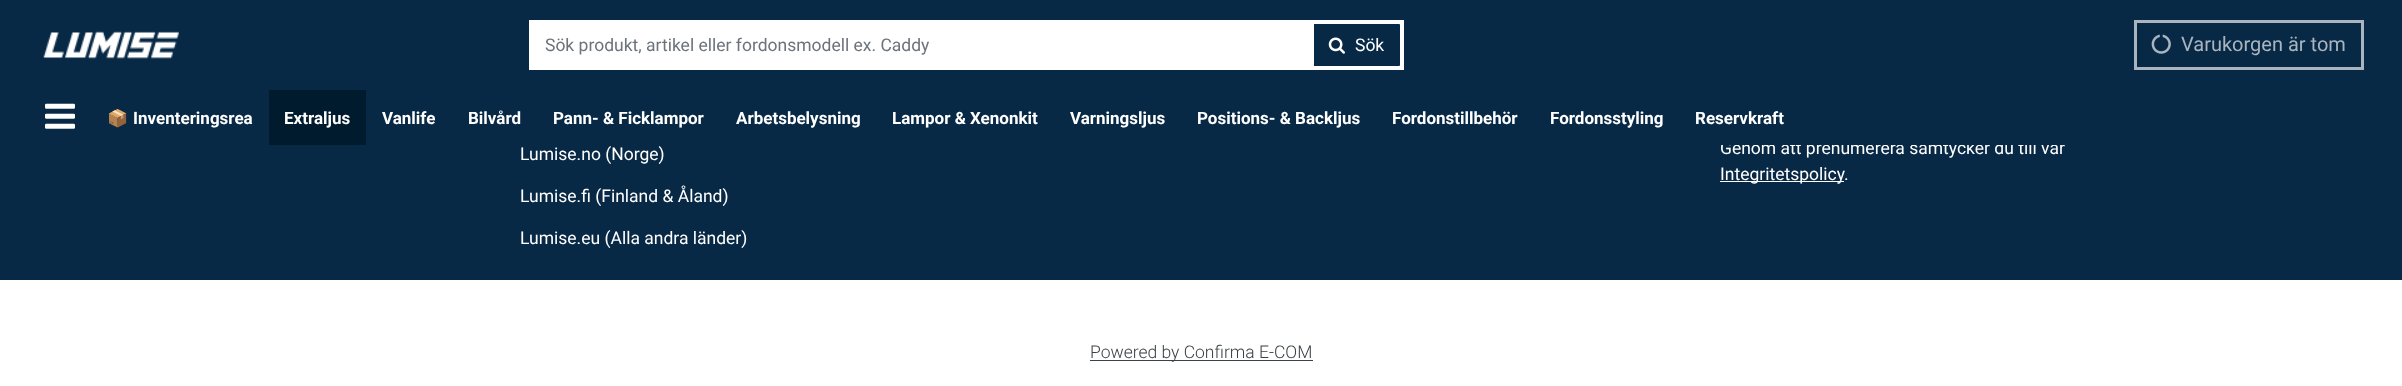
<?xml version="1.0" encoding="UTF-8"?>
<svg xmlns="http://www.w3.org/2000/svg" xmlns:xlink="http://www.w3.org/1999/xlink" width="2402" height="386">
  <rect width="100%" height="100%" fill="#ffffff" />
  <rect y="145" width="2402" height="135" fill="#082946" />
  <rect x="1720" y="181" width="124" height="1" fill="#ffffff" />
  <rect x="1090" y="360" width="223" height="1" fill="#3b4144" />
  <text x="520" y="160" style="font-family: Roboto; font-size: 17.5px; fill: #ffffff">Lumise.no (Norge)</text>
  <text x="520" y="202" style="font-family: Roboto; font-size: 17.5px; fill: #ffffff">Lumise.fi (Finland &amp; Åland)</text>
  <text x="520" y="244" style="font-family: Roboto; font-size: 17.5px; fill: #ffffff">Lumise.eu (Alla andra länder)</text>
  <text x="1720" y="154" style="font-family: Roboto; font-size: 17.5px; fill: #ffffff">Genom att prenumerera samtycker du till vår</text>
  <rect width="2402" height="145" fill="#082946" />
  <text x="1695" y="124" style="font-family: Roboto; font-size: 17px; font-weight: bold; fill: #ffffff">Reservkraft</text>
  <text x="1550" y="124" style="font-family: Roboto; font-size: 17px; font-weight: bold; fill: #ffffff">Fordonsstyling</text>
  <text x="1392" y="124" style="font-family: Roboto; font-size: 17px; font-weight: bold; fill: #ffffff">Fordonstillbehör</text>
  <text x="1197" y="124" style="font-family: Roboto; font-size: 17px; font-weight: bold; fill: #ffffff">Positions- &amp; Backljus</text>
  <text x="1070" y="124" style="font-family: Roboto; font-size: 17px; font-weight: bold; fill: #ffffff">Varningsljus</text>
  <text x="892" y="124" style="font-family: Roboto; font-size: 17px; font-weight: bold; fill: #ffffff">Lampor &amp; Xenonkit</text>
  <text x="736" y="124" style="font-family: Roboto; font-size: 17px; font-weight: bold; fill: #ffffff">Arbetsbelysning</text>
  <text x="553" y="124" style="font-family: Roboto; font-size: 17px; font-weight: bold; fill: #ffffff">Pann- &amp; Ficklampor</text>
  <text x="468" y="124" style="font-family: Roboto; font-size: 17px; font-weight: bold; fill: #ffffff">Bilvård</text>
  <text x="382" y="124" style="font-family: Roboto; font-size: 17px; font-weight: bold; fill: #ffffff">Vanlife</text>
  <rect x="269" y="90" width="97" height="55" fill="#001b2e" />
  <text x="284" y="124" style="font-family: Roboto; font-size: 17px; font-weight: bold; fill: #ffffff">Extraljus</text>
  <text x="133" y="124" style="font-family: Roboto; font-size: 17px; font-weight: bold; fill: #ffffff">Inventeringsrea</text>
  <text x="107" y="124" style="font-family: Noto Color Emoji; font-size: 17px; font-weight: bold; fill: #ffffff">📦</text>
  <image x="45" y="103" width="30" height="26" xlink:href="image4.png" />
  <rect x="2135.5" y="21.5" width="227" height="47" fill="none" stroke="#a9b4be" stroke-width="3" />
  <text x="2181" y="51" style="font-family: Roboto; font-size: 20px; fill: #a9b4be">Varukorgen är tom</text>
  <image x="2151" y="34" width="20" height="20" xlink:href="image3.png" />
  <rect x="529.5" y="20.5" width="874" height="49" fill="#ffffff" stroke="#ffffff" />
  <path d="M 1312 22 h 87 c 1.5 0 3 1.5 3 3 v 40 c 0 1.5 -1.5 3 -3 3 h -87 z" fill="#082946" stroke="#ffffff" stroke-width="4" />
  <text x="1355" y="51" style="font-family: Roboto; font-size: 17.5px; fill: #ffffff">Sök</text>
  <image x="1328" y="37" width="17" height="17" xlink:href="image2.png" />
  <text x="545" y="51" style="font-family: Roboto; font-size: 17.5px; fill: #6b737b">Sök produkt, artikel eller fordonsmodell ex. Caddy</text>
  <image x="43" y="31" width="136" height="28" xlink:href="image1.png" />
  <text x="1720" y="180" style="font-family: Roboto; font-size: 17.5px; fill: #ffffff">Integritetspolicy</text>
  <text x="1844" y="180" style="font-family: Roboto; font-size: 17.5px; fill: #ffffff">.</text>
  <text x="1090" y="358" style="font-family: Roboto; font-size: 17.5px; font-weight: 300; fill: #3b4144">Powered by Confirma E-COM</text>
</svg>
